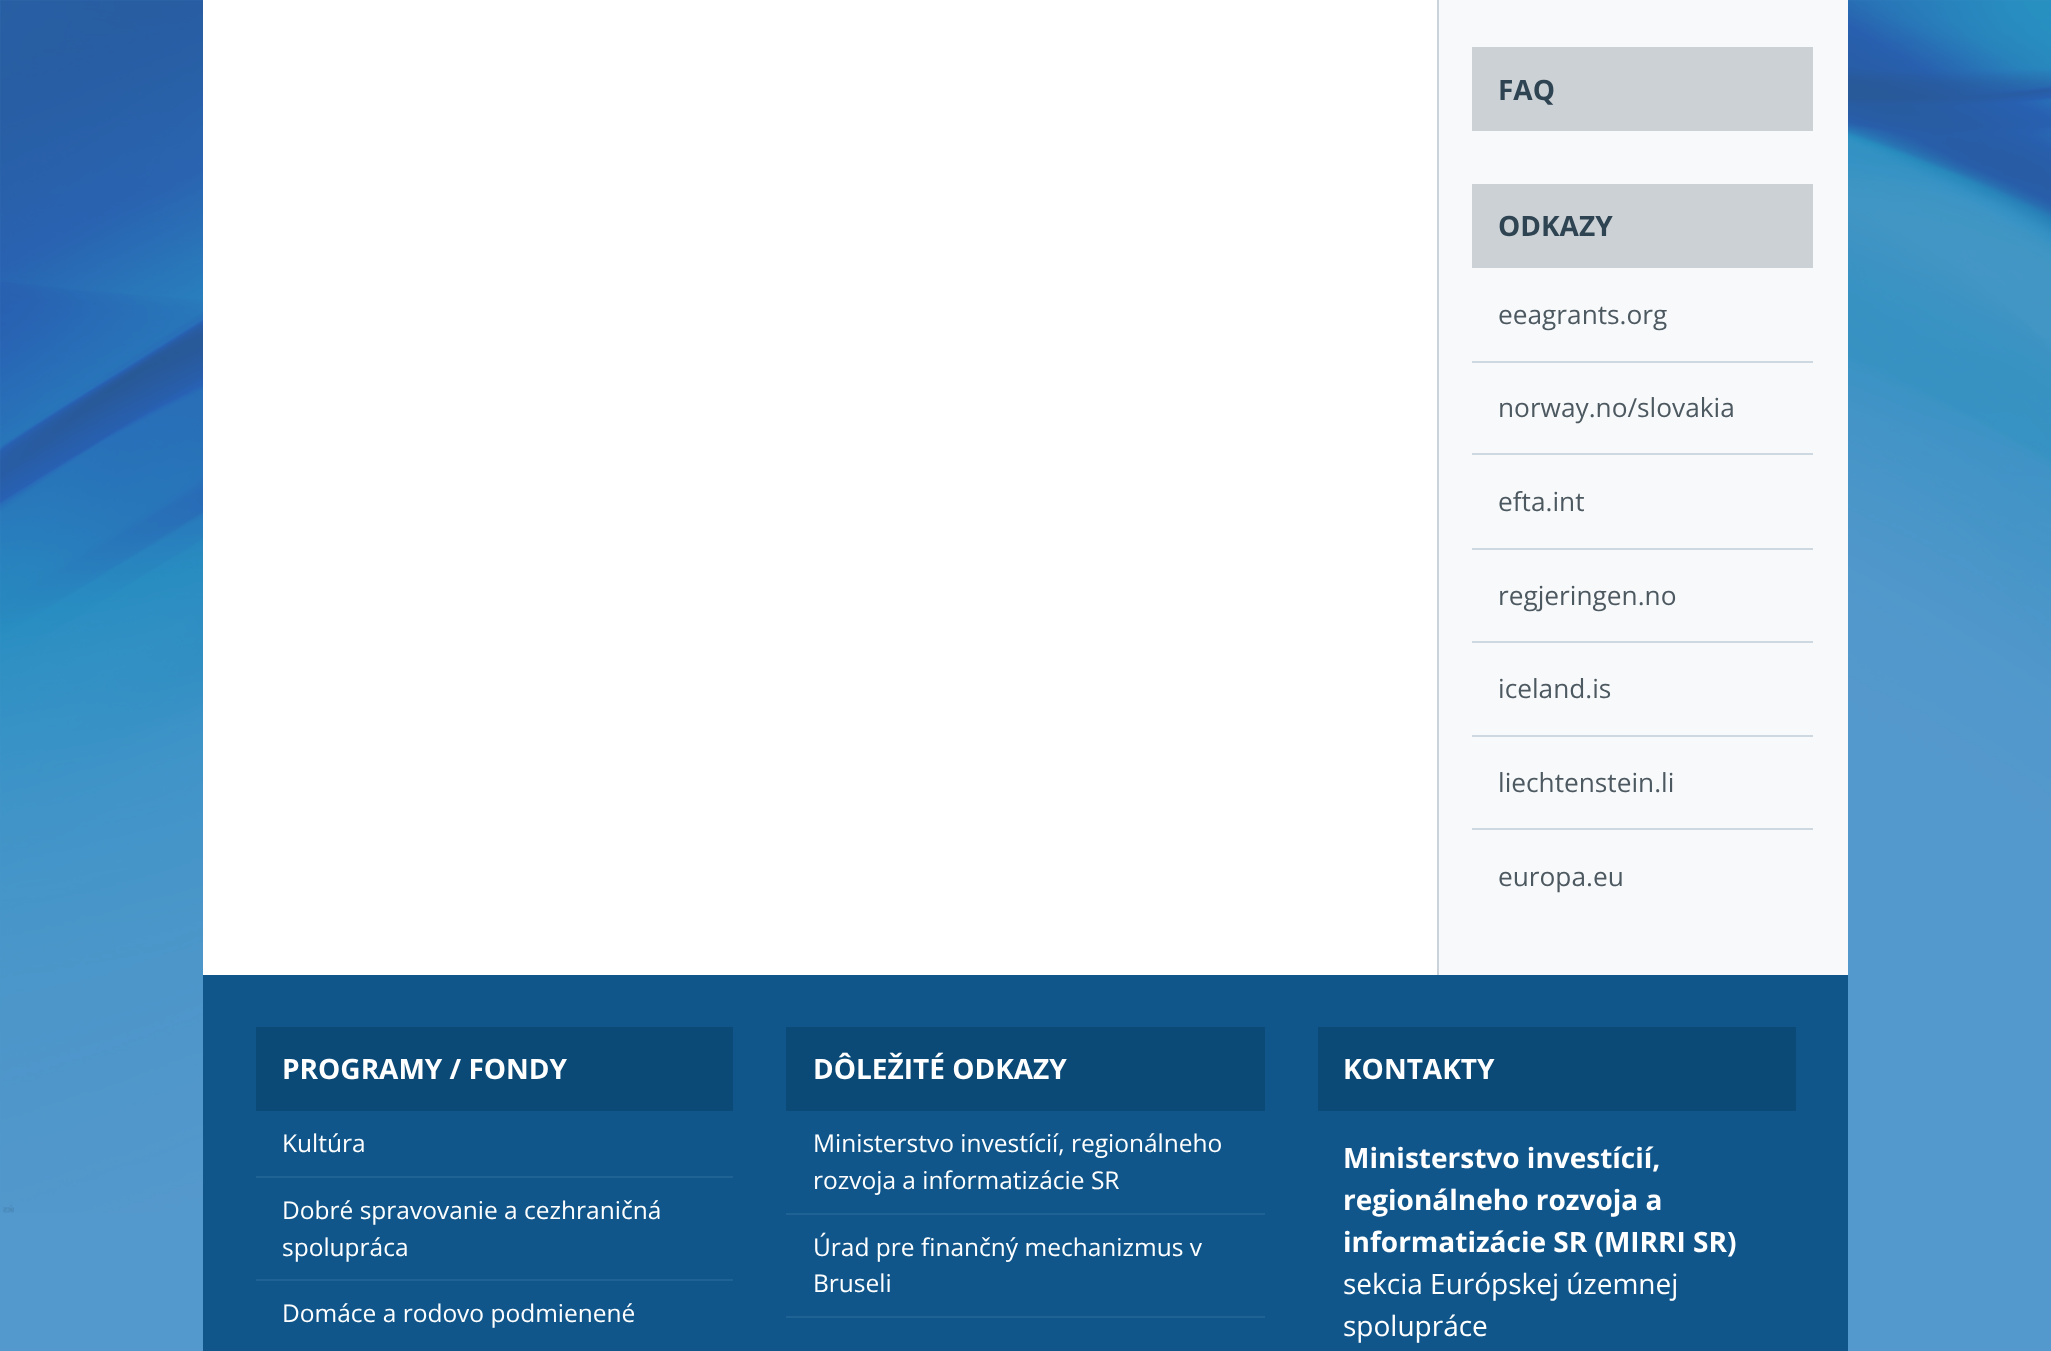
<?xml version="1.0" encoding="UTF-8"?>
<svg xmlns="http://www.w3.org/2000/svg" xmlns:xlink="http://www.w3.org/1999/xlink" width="2051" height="1351">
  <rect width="100%" height="100%" fill="#5499cd" />
  <image x="0" y="0" width="2051" height="1213" xlink:href="image1.png" />
  <rect x="203" width="1234" height="975" fill="#ffffff" />
  <rect x="1439" width="409" height="975" fill="#f8f9fa" />
  <rect x="1437" width="2" height="975" fill="#cad3da" />
  <rect x="1472" y="47" width="341" height="84" fill="#cbd1d5" />
  <rect x="1472" y="184" width="341" height="84" fill="#cbd1d5" />
  <rect x="1472" y="361" width="341" height="2" fill="#ced8e0" />
  <rect x="1472" y="453" width="341" height="2" fill="#ced8e0" />
  <rect x="1472" y="548" width="341" height="2" fill="#ced8e0" />
  <rect x="1472" y="641" width="341" height="2" fill="#ced8e0" />
  <rect x="1472" y="735" width="341" height="2" fill="#ced8e0" />
  <rect x="1472" y="828" width="341" height="2" fill="#ced8e0" />
  <rect x="203" y="975" width="1645" height="376" fill="#10568a" />
  <rect x="256" y="1027" width="477" height="84" fill="#0b4976" />
  <rect x="256" y="1176" width="477" height="2" fill="#1f6294" />
  <rect x="256" y="1279" width="477" height="2" fill="#1f6294" />
  <rect x="786" y="1027" width="479" height="84" fill="#0b4976" />
  <rect x="786" y="1213" width="479" height="2" fill="#1f6294" />
  <rect x="786" y="1316" width="479" height="2" fill="#1f6294" />
  <rect x="1318" y="1027" width="478" height="84" fill="#0b4976" />
  <text x="1498" y="100" style="font-family: Open Sans; font-size: 28px; font-weight: bold; fill: #2f4452">FAQ</text>
  <text x="1498" y="236" style="font-family: Open Sans; font-size: 28px; font-weight: bold; fill: #2f4452">ODKAZY</text>
  <text x="1498" y="324" style="font-family: Open Sans; font-size: 26.25px; fill: #4d5961">eeagrants.org</text>
  <text x="1498" y="417" style="font-family: Open Sans; font-size: 26.25px; fill: #4d5961">norway.no/slovakia</text>
  <text x="1498" y="511" style="font-family: Open Sans; font-size: 26.25px; fill: #4d5961">efta.int</text>
  <text x="1498" y="605" style="font-family: Open Sans; font-size: 26.25px; fill: #4d5961">regjeringen.no</text>
  <text x="1498" y="698" style="font-family: Open Sans; font-size: 26.25px; fill: #4d5961">iceland.is</text>
  <text x="1498" y="792" style="font-family: Open Sans; font-size: 26.25px; fill: #4d5961">liechtenstein.li</text>
  <text x="1498" y="886" style="font-family: Open Sans; font-size: 26.25px; fill: #4d5961">europa.eu</text>
  <text x="282" y="1079" style="font-family: Open Sans; font-size: 28px; font-weight: bold; fill: #ffffff">PROGRAMY / FONDY</text>
  <text x="282" y="1152" style="font-family: Open Sans; font-size: 24.5px; fill: #ffffff">Kultúra</text>
  <text x="282" y="1219" style="font-family: Open Sans; font-size: 24.5px; fill: #ffffff">Dobré spravovanie a cezhraničná</text>
  <text x="282" y="1256" style="font-family: Open Sans; font-size: 24.5px; fill: #ffffff">spolupráca</text>
  <text x="282" y="1322" style="font-family: Open Sans; font-size: 24.5px; fill: #ffffff">Domáce a rodovo podmienené</text>
  <text x="813" y="1079" style="font-family: Open Sans; font-size: 28px; font-weight: bold; fill: #ffffff">DÔLEŽITÉ ODKAZY</text>
  <text x="813" y="1152" style="font-family: Open Sans; font-size: 24.5px; fill: #ffffff">Ministerstvo investícií, regionálneho</text>
  <text x="813" y="1189" style="font-family: Open Sans; font-size: 24.5px; fill: #ffffff">rozvoja a informatizácie SR</text>
  <text x="813" y="1256" style="font-family: Open Sans; font-size: 24.5px; fill: #ffffff">Úrad pre finančný mechanizmus v</text>
  <text x="813" y="1292" style="font-family: Open Sans; font-size: 24.5px; fill: #ffffff">Bruseli</text>
  <text x="1343" y="1079" style="font-family: Open Sans; font-size: 28px; font-weight: bold; fill: #ffffff">KONTAKTY</text>
  <text x="1343" y="1168" style="font-family: Open Sans; font-size: 28px; font-weight: bold; fill: #ffffff">Ministerstvo investícií,</text>
  <text x="1343" y="1210" style="font-family: Open Sans; font-size: 28px; font-weight: bold; fill: #ffffff">regionálneho rozvoja a</text>
  <text x="1343" y="1252" style="font-family: Open Sans; font-size: 28px; font-weight: bold; fill: #ffffff">informatizácie SR (MIRRI SR)</text>
  <text x="1343" y="1294" style="font-family: Open Sans; font-size: 28px; fill: #ffffff">sekcia Európskej územnej</text>
  <text x="1343" y="1336" style="font-family: Open Sans; font-size: 28px; fill: #ffffff">spolupráce</text>
</svg>
